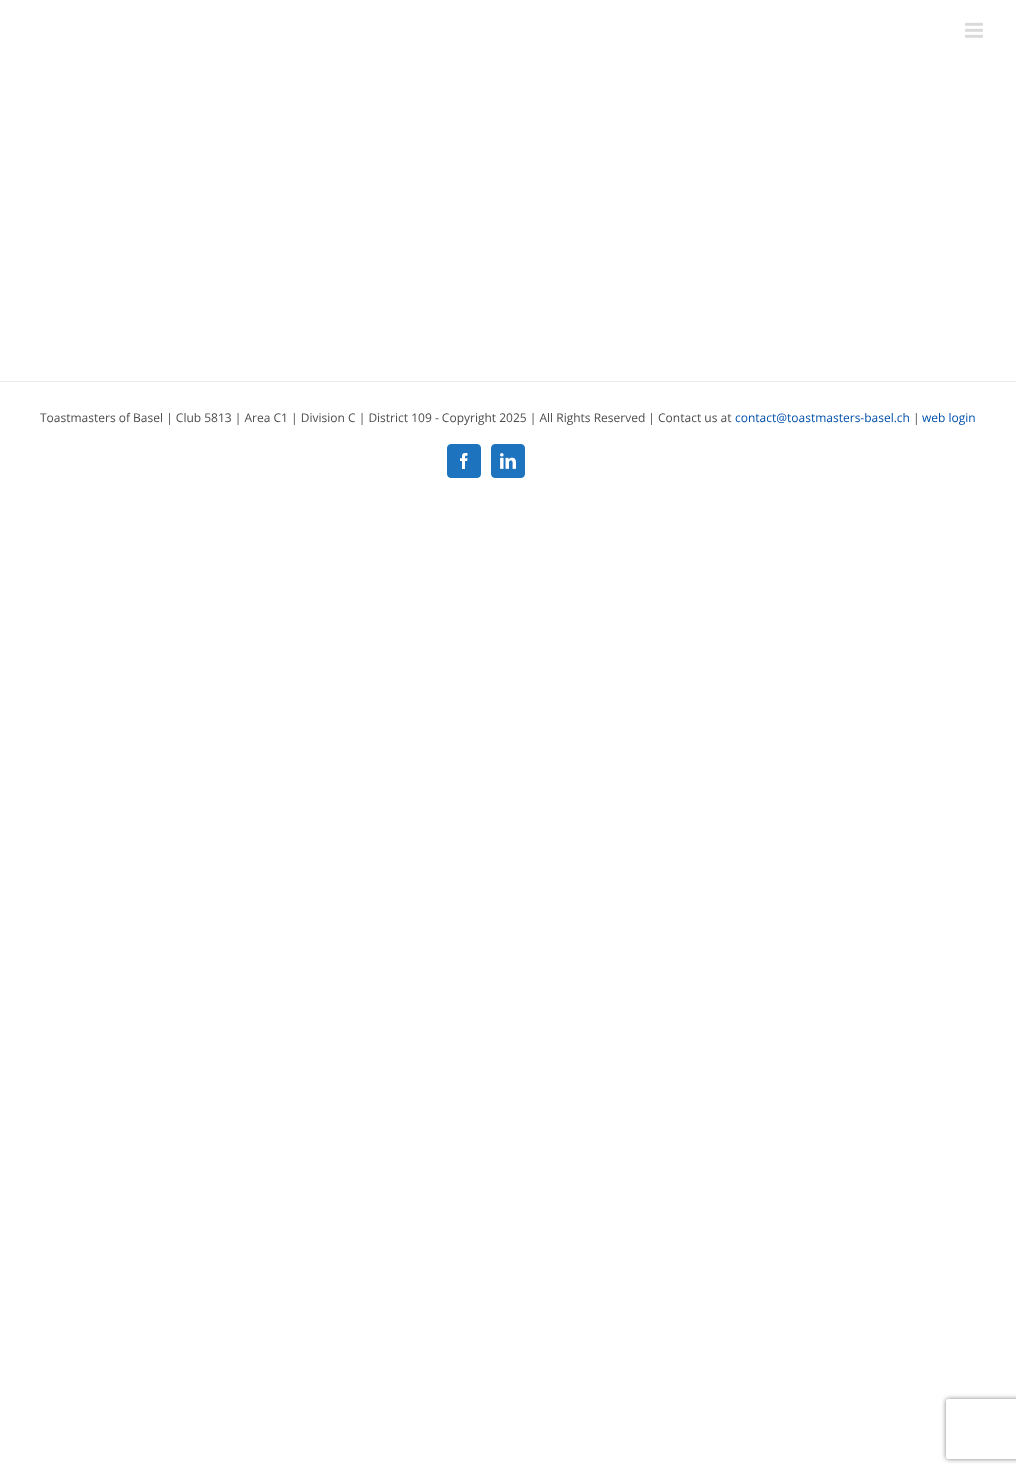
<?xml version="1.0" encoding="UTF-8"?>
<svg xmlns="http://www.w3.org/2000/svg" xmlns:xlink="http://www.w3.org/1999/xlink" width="1016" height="1473">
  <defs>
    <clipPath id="clip1"><path d="M 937 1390 h 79 v 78 h -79 z m 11 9 h 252 c 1 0 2 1 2 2 v 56 c 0 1 -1 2 -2 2 h -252 c -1 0 -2 -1 -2 -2 v -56 c 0 -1 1 -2 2 -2 z" clip-rule="evenodd" /></clipPath>
  </defs>
  <rect width="100%" height="100%" fill="#ffffff" />
  <image x="965" y="22" width="18" height="16" xlink:href="image1.png" />
  <rect y="381" width="1016" height="1" fill="#eaeaea" />
  <rect x="447.5" y="444.5" width="33" height="33" rx="3.5" fill="#1e73be" stroke="#1e73be" />
  <image x="460" y="453" width="8" height="16" xlink:href="image2.png" />
  <rect x="491.5" y="444.5" width="33" height="33" rx="3.5" fill="#1e73be" stroke="#1e73be" />
  <image x="500" y="453" width="16" height="16" xlink:href="image3.png" />
  <g clip-path="url(#clip1)">
    <rect x="946" y="1399" width="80" height="60" rx="2" fill="#808080" filter="blur(2.5px)" />
  </g>
  <text x="40" y="422" style="font-family: Open Sans; font-size: 12px; fill: #4c4c4c">Toastmasters of Basel | Club 5813 | Area C1 | Division C | District 109 - Copyright 2025 | All Rights Reserved | Contact us at</text>
  <text x="735" y="422" style="font-family: Open Sans; font-size: 12px; fill: #004faa">contact@toastmasters-basel.ch</text>
  <text x="913" y="422" style="font-family: Open Sans; font-size: 12px; fill: #4c4c4c">|</text>
  <text x="922" y="422" style="font-family: Open Sans; font-size: 12px; fill: #004faa">web login</text>
</svg>
